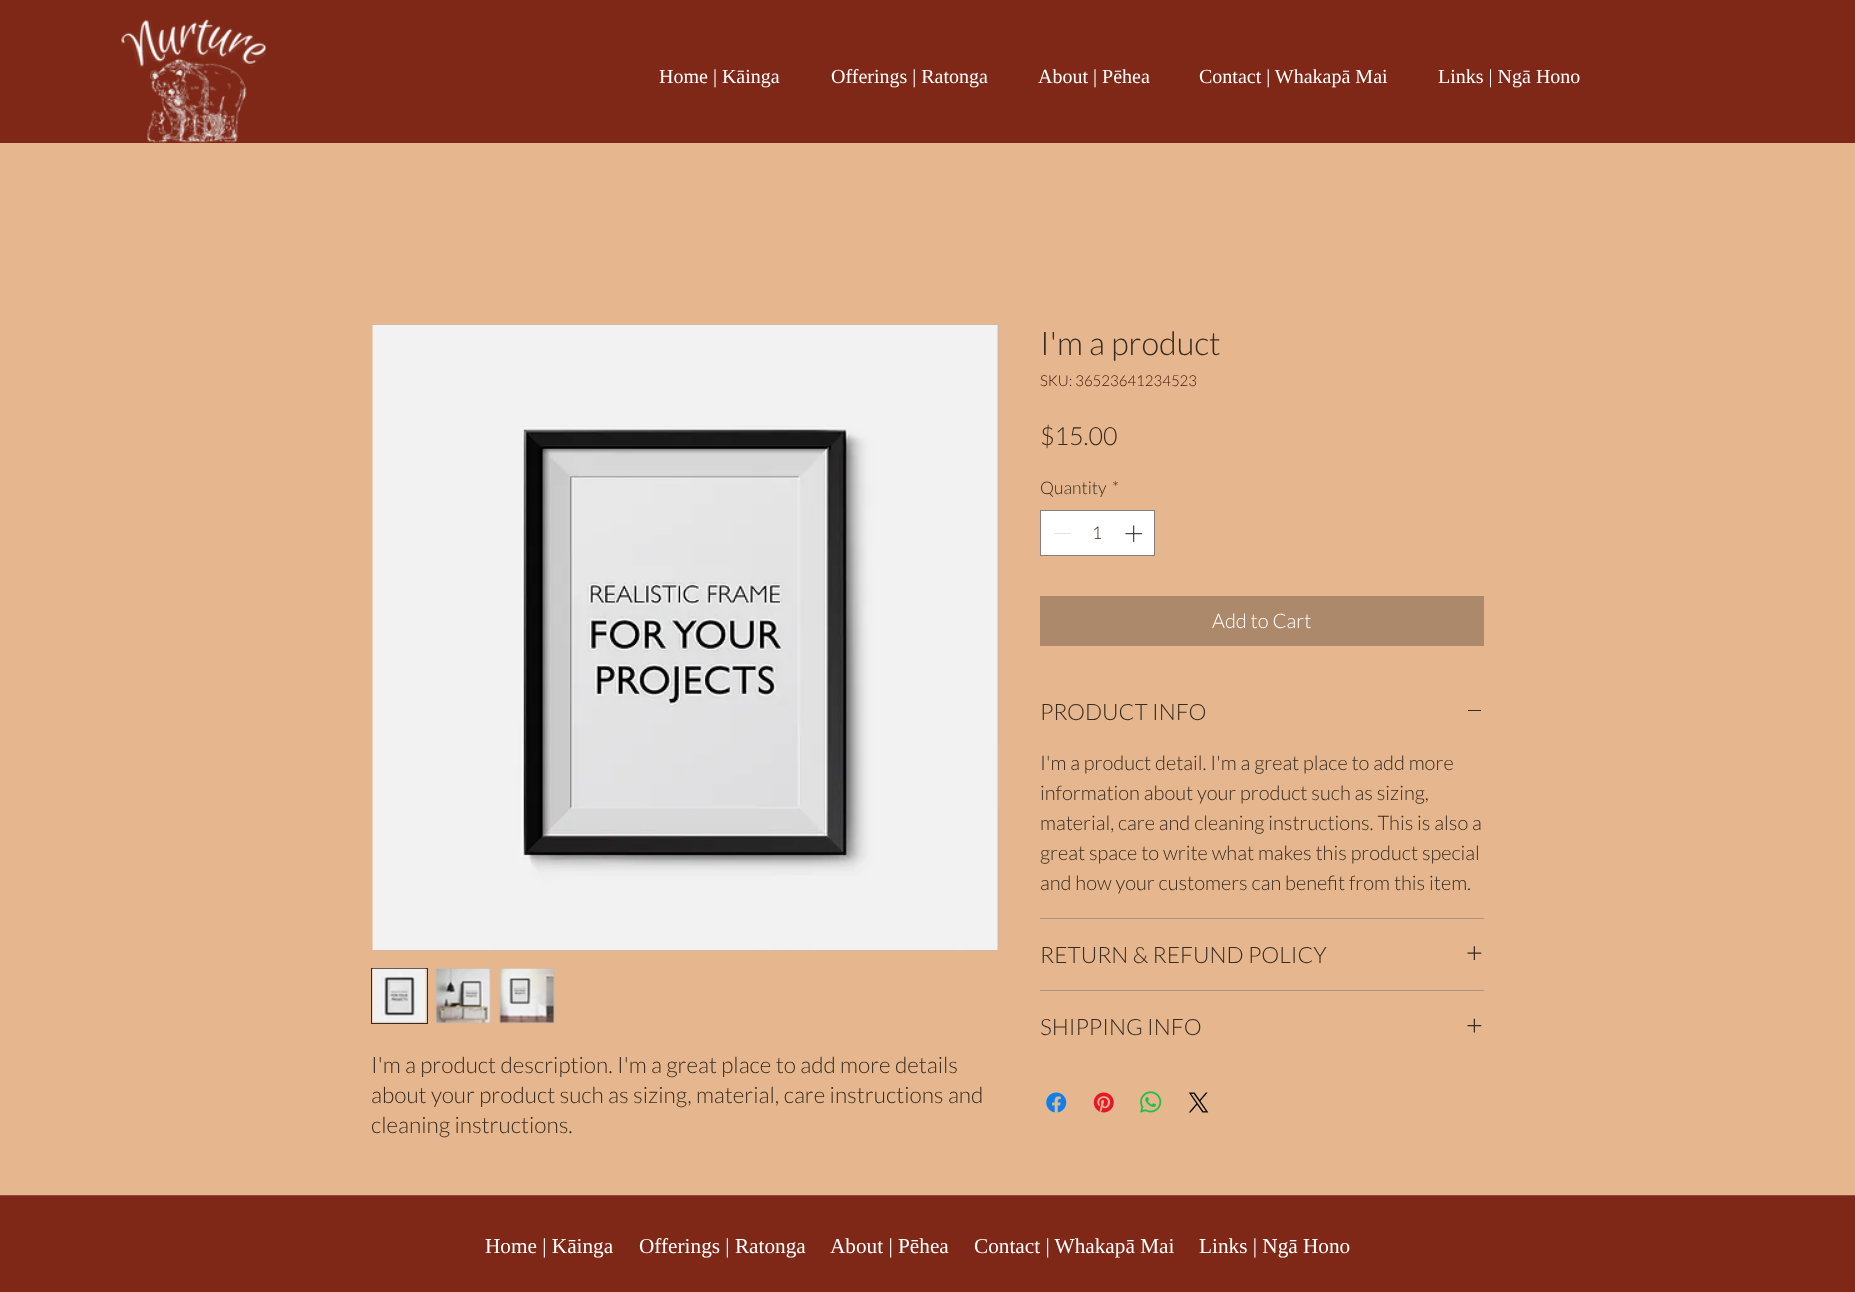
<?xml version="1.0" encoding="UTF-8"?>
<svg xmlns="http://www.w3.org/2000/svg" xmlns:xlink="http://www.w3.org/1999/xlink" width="1855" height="1292">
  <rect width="100%" height="100%" fill="#e6b78e" />
  <rect width="1855" height="143" fill="#7f2817" />
  <image x="121" y="19" width="145" height="50" xlink:href="image1.png" />
  <image x="147" y="58" width="100" height="85" xlink:href="image2.png" />
  <rect x="1040.5" y="510.5" width="114" height="45" fill="#ffffff" stroke="#87807a" />
  <rect x="1054" y="533" width="17" height="1" fill="#e3e3e3" />
  <image x="1125" y="525" width="17" height="17" xlink:href="image3.png" />
  <rect x="1040" y="596" width="444" height="50" fill="#ad896b" />
  <rect x="1040" y="918" width="444" height="1" fill="#b0937b" />
  <rect x="1468" y="710" width="13" height="1" fill="#372b21" />
  <rect x="1040" y="990" width="444" height="1" fill="#b0937b" />
  <image x="1467" y="946" width="15" height="14" xlink:href="image4.png" />
  <image x="1467" y="1018" width="15" height="15" xlink:href="image5.png" />
  <image x="1046" y="1092" width="21" height="21" xlink:href="image6.png" />
  <image x="1093" y="1092" width="21" height="21" xlink:href="image7.png" />
  <image x="1140" y="1091" width="22" height="22" xlink:href="image8.png" />
  <image x="1188" y="1092" width="21" height="21" xlink:href="image9.png" />
  <rect x="371.5" y="324.5" width="627" height="626" fill="none" stroke="#d6b89f" />
  <image x="372" y="325" width="626" height="625" xlink:href="image10.png" />
  <rect x="371.5" y="968.5" width="56" height="55" fill="#d6b89f" stroke="#372b21" />
  <image x="372" y="968" width="55" height="55" xlink:href="image11.png" />
  <rect x="435" y="968" width="56" height="56" fill="#d6b89f" />
  <image x="436" y="968" width="55" height="55" xlink:href="image12.png" />
  <rect x="499" y="968" width="56" height="56" fill="#d6b89f" />
  <image x="499" y="968" width="56" height="55" xlink:href="image13.png" />
  <rect y="1196" width="1855" height="96" fill="#7f2817" />
  <rect y="1195" width="1855" height="1" fill="#92483a" />
  <text x="659" y="83" style="font-family: Liberation Serif; font-size: 20px; fill: #ffffff">Home | Kāinga</text>
  <text x="831" y="83" style="font-family: Liberation Serif; font-size: 20px; fill: #ffffff">Offerings | Ratonga</text>
  <text x="1038" y="83" style="font-family: Liberation Serif; font-size: 20px; fill: #ffffff">About | Pēhea</text>
  <text x="1199" y="83" style="font-family: Liberation Serif; font-size: 20px; fill: #ffffff">Contact | Whakapā Mai</text>
  <text x="1438" y="83" style="font-family: Liberation Serif; font-size: 20px; fill: #ffffff">Links | Ngā Hono</text>
  <text x="1040" y="355" style="font-family: Lato; font-size: 32.5px; font-weight: 300; fill: #372b21">I'm a product</text>
  <text x="1040" y="386" style="font-family: Lato; font-size: 15px; font-weight: 300; fill: #40140b">SKU: 36523641234523</text>
  <text x="1040" y="445" style="font-family: Lato; font-size: 25px; font-weight: 300; fill: #372b21">$15.00</text>
  <text x="1040" y="494" style="font-family: Lato; font-size: 17.5px; font-weight: 300; fill: #372b21">Quantity</text>
  <text x="1112" y="494" style="font-family: Lato; font-size: 17.5px; font-weight: 300; fill: #372b21">*</text>
  <text x="1092" y="539" style="font-family: Lato; font-size: 17.5px; font-weight: 300; fill: #372b21">1</text>
  <text x="1212" y="628" style="font-family: Lato; font-size: 20px; font-weight: 300; fill: #ffffff">Add to Cart</text>
  <text x="1040" y="720" style="font-family: Lato; font-size: 22.5px; font-weight: 300; fill: #372b21">PRODUCT INFO</text>
  <text x="1040" y="770" style="font-family: Lato; font-size: 20px; font-weight: 300; fill: #372b21">I'm a product detail. I'm a great place to add more</text>
  <text x="1040" y="800" style="font-family: Lato; font-size: 20px; font-weight: 300; fill: #372b21">information about your product such as sizing,</text>
  <text x="1040" y="830" style="font-family: Lato; font-size: 20px; font-weight: 300; fill: #372b21">material, care and cleaning instructions. This is also a</text>
  <text x="1040" y="860" style="font-family: Lato; font-size: 20px; font-weight: 300; fill: #372b21">great space to write what makes this product special</text>
  <text x="1040" y="890" style="font-family: Lato; font-size: 20px; font-weight: 300; fill: #372b21">and how your customers can benefit from this item.</text>
  <text x="1040" y="963" style="font-family: Lato; font-size: 22.5px; font-weight: 300; fill: #372b21">RETURN &amp; REFUND POLICY</text>
  <text x="1040" y="1035" style="font-family: Lato; font-size: 22.5px; font-weight: 300; fill: #372b21">SHIPPING INFO</text>
  <text x="371" y="1073" style="font-family: Lato; font-size: 22.5px; font-weight: 300; fill: #372b21">I'm a product description. I'm a great place to add more details</text>
  <text x="371" y="1103" style="font-family: Lato; font-size: 22.5px; font-weight: 300; fill: #372b21">about your product such as sizing, material, care instructions and</text>
  <text x="371" y="1133" style="font-family: Lato; font-size: 22.5px; font-weight: 300; fill: #372b21">cleaning instructions.</text>
  <text x="485" y="1253" style="font-family: Liberation Serif; font-size: 21.25px; fill: #ffffff">Home | Kāinga</text>
  <text x="639" y="1253" style="font-family: Liberation Serif; font-size: 21.25px; fill: #ffffff">Offerings | Ratonga</text>
  <text x="830" y="1253" style="font-family: Liberation Serif; font-size: 21.25px; fill: #ffffff">About | Pēhea</text>
  <text x="974" y="1253" style="font-family: Liberation Serif; font-size: 21.25px; fill: #ffffff">Contact | Whakapā Mai</text>
  <text x="1199" y="1253" style="font-family: Liberation Serif; font-size: 21.25px; fill: #ffffff">Links | Ngā Hono</text>
</svg>
